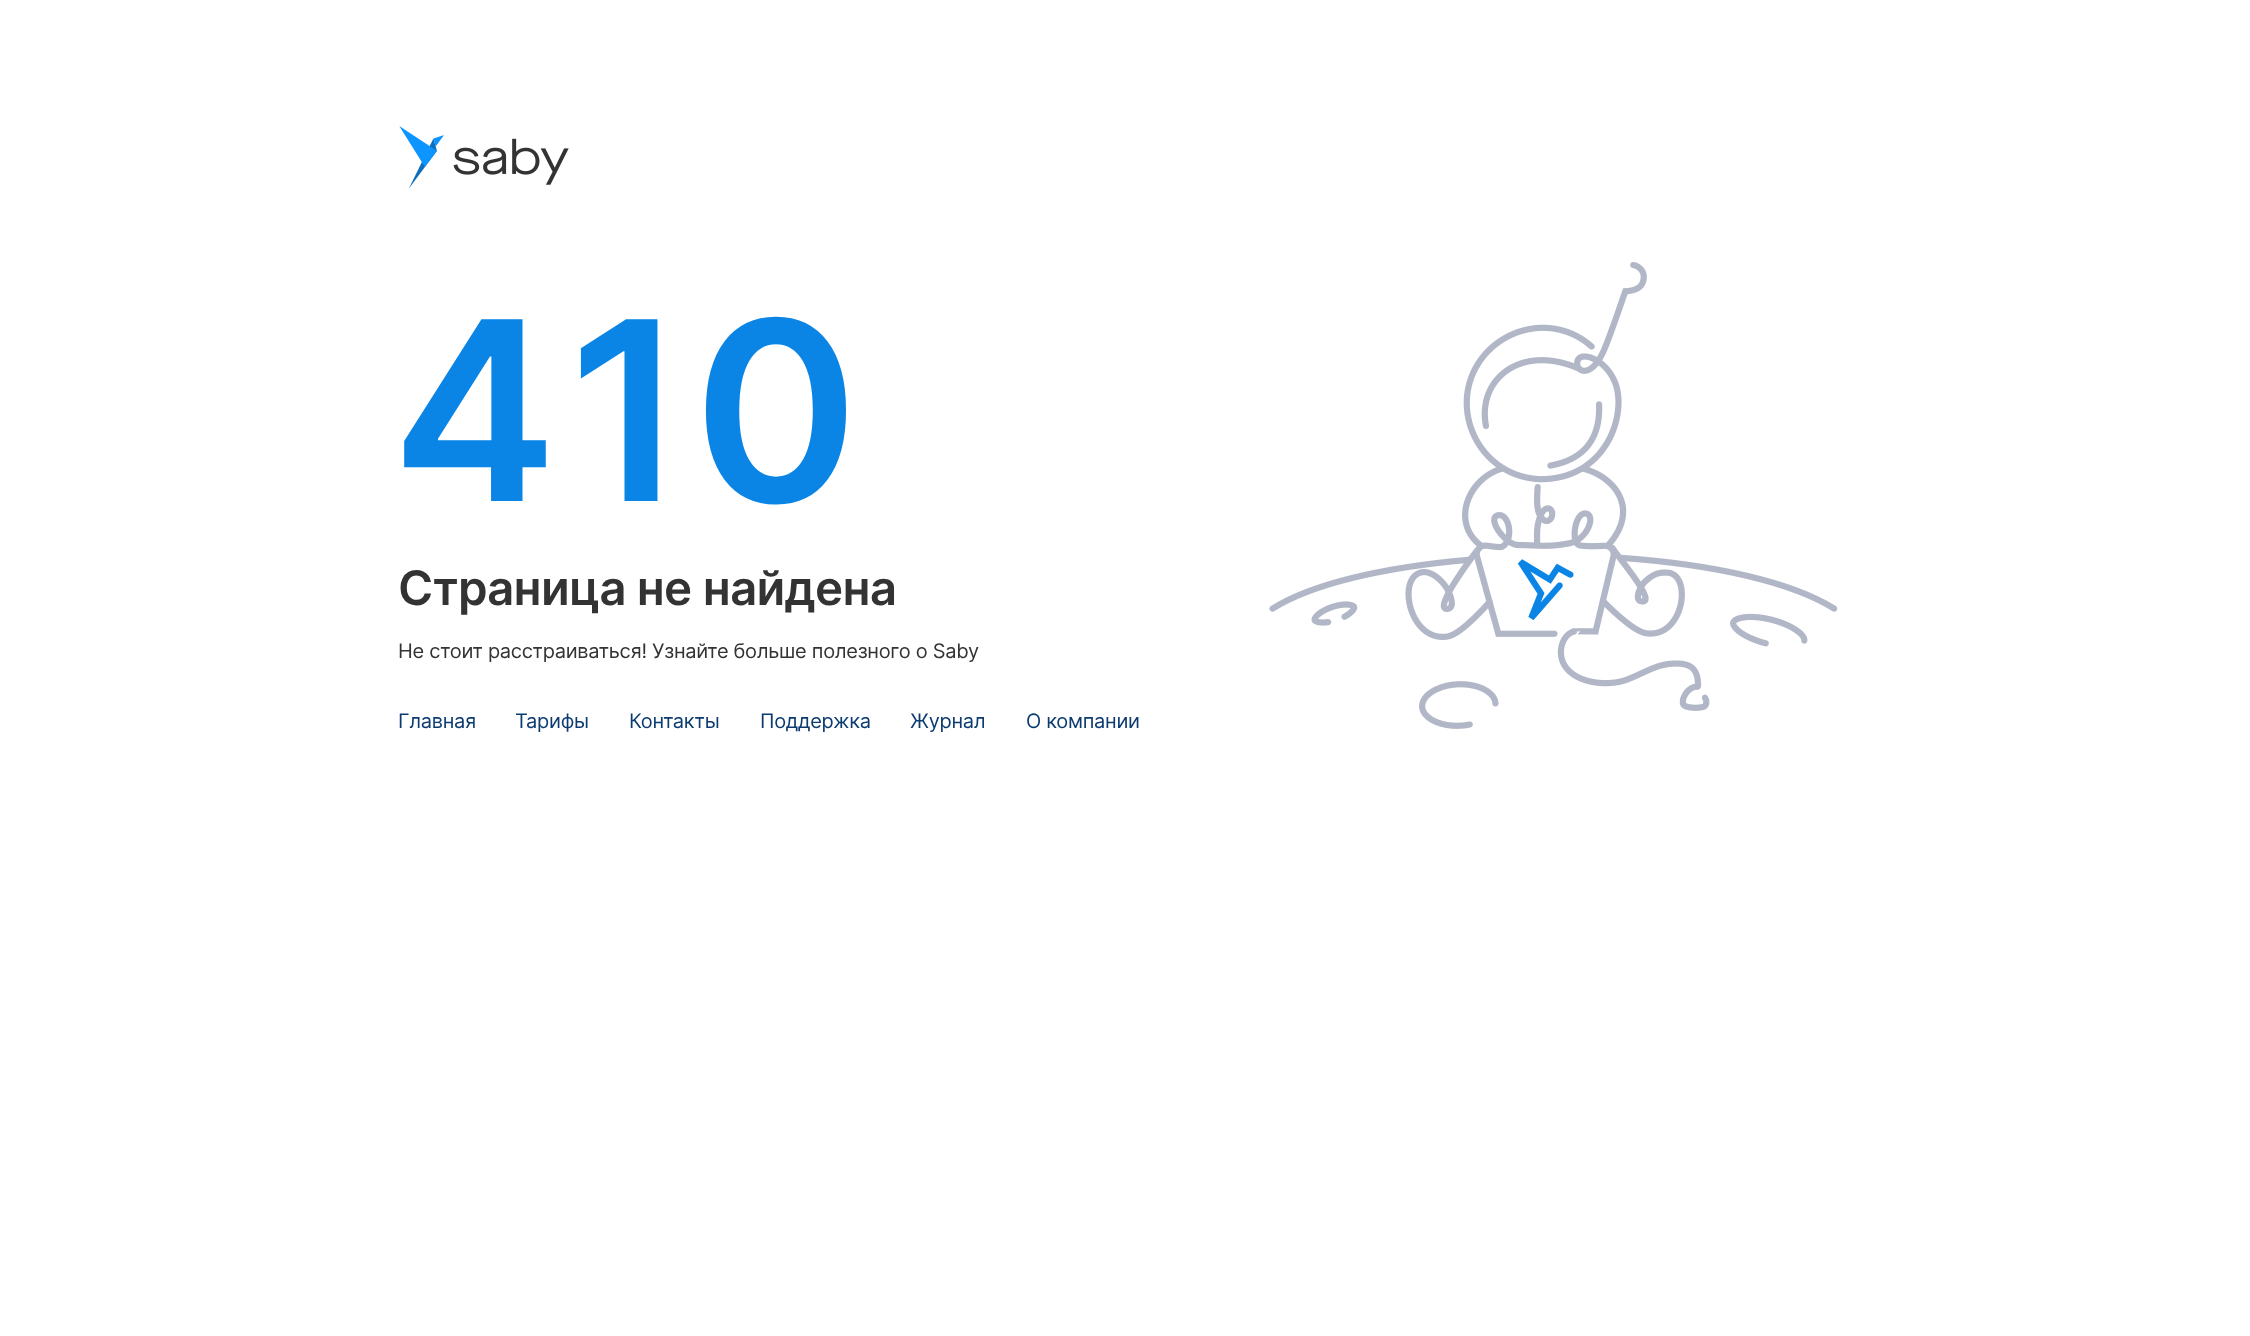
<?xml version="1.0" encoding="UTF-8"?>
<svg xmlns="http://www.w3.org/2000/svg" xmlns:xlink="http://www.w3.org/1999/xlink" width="2250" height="1336">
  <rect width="100%" height="100%" fill="#ffffff" />
  <image x="399" y="126" width="170" height="63" xlink:href="image1.png" />
  <image x="1269" y="262" width="569" height="467" xlink:href="image2.png" />
  <text x="398" y="501" style="font-family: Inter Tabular; font-size: 250px; font-weight: 600; letter-spacing: -3.5px; fill: #0a85e6">410</text>
  <text x="398" y="605" style="font-family: Inter; font-size: 47.5px; font-weight: 600; letter-spacing: -0.7px; fill: #333333">Страница не найдена</text>
  <text x="398" y="658" style="font-family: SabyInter; font-size: 20px; letter-spacing: -0.28px; fill: #333333">Не стоит расстраиваться! Узнайте больше полезного о Saby</text>
  <text x="398" y="728" style="font-family: SabyInter; font-size: 20px; letter-spacing: -0.28px; fill: #0b3b71">Главная</text>
  <text x="515" y="728" style="font-family: SabyInter; font-size: 20px; letter-spacing: -0.28px; fill: #0b3b71">Тарифы</text>
  <text x="629" y="728" style="font-family: SabyInter; font-size: 20px; letter-spacing: -0.28px; fill: #0b3b71">Контакты</text>
  <text x="760" y="728" style="font-family: SabyInter; font-size: 20px; letter-spacing: -0.28px; fill: #0b3b71">Поддержка</text>
  <text x="910" y="728" style="font-family: SabyInter; font-size: 20px; letter-spacing: -0.28px; fill: #0b3b71">Журнал</text>
  <text x="1026" y="728" style="font-family: SabyInter; font-size: 20px; letter-spacing: -0.28px; fill: #0b3b71">О компании</text>
</svg>
